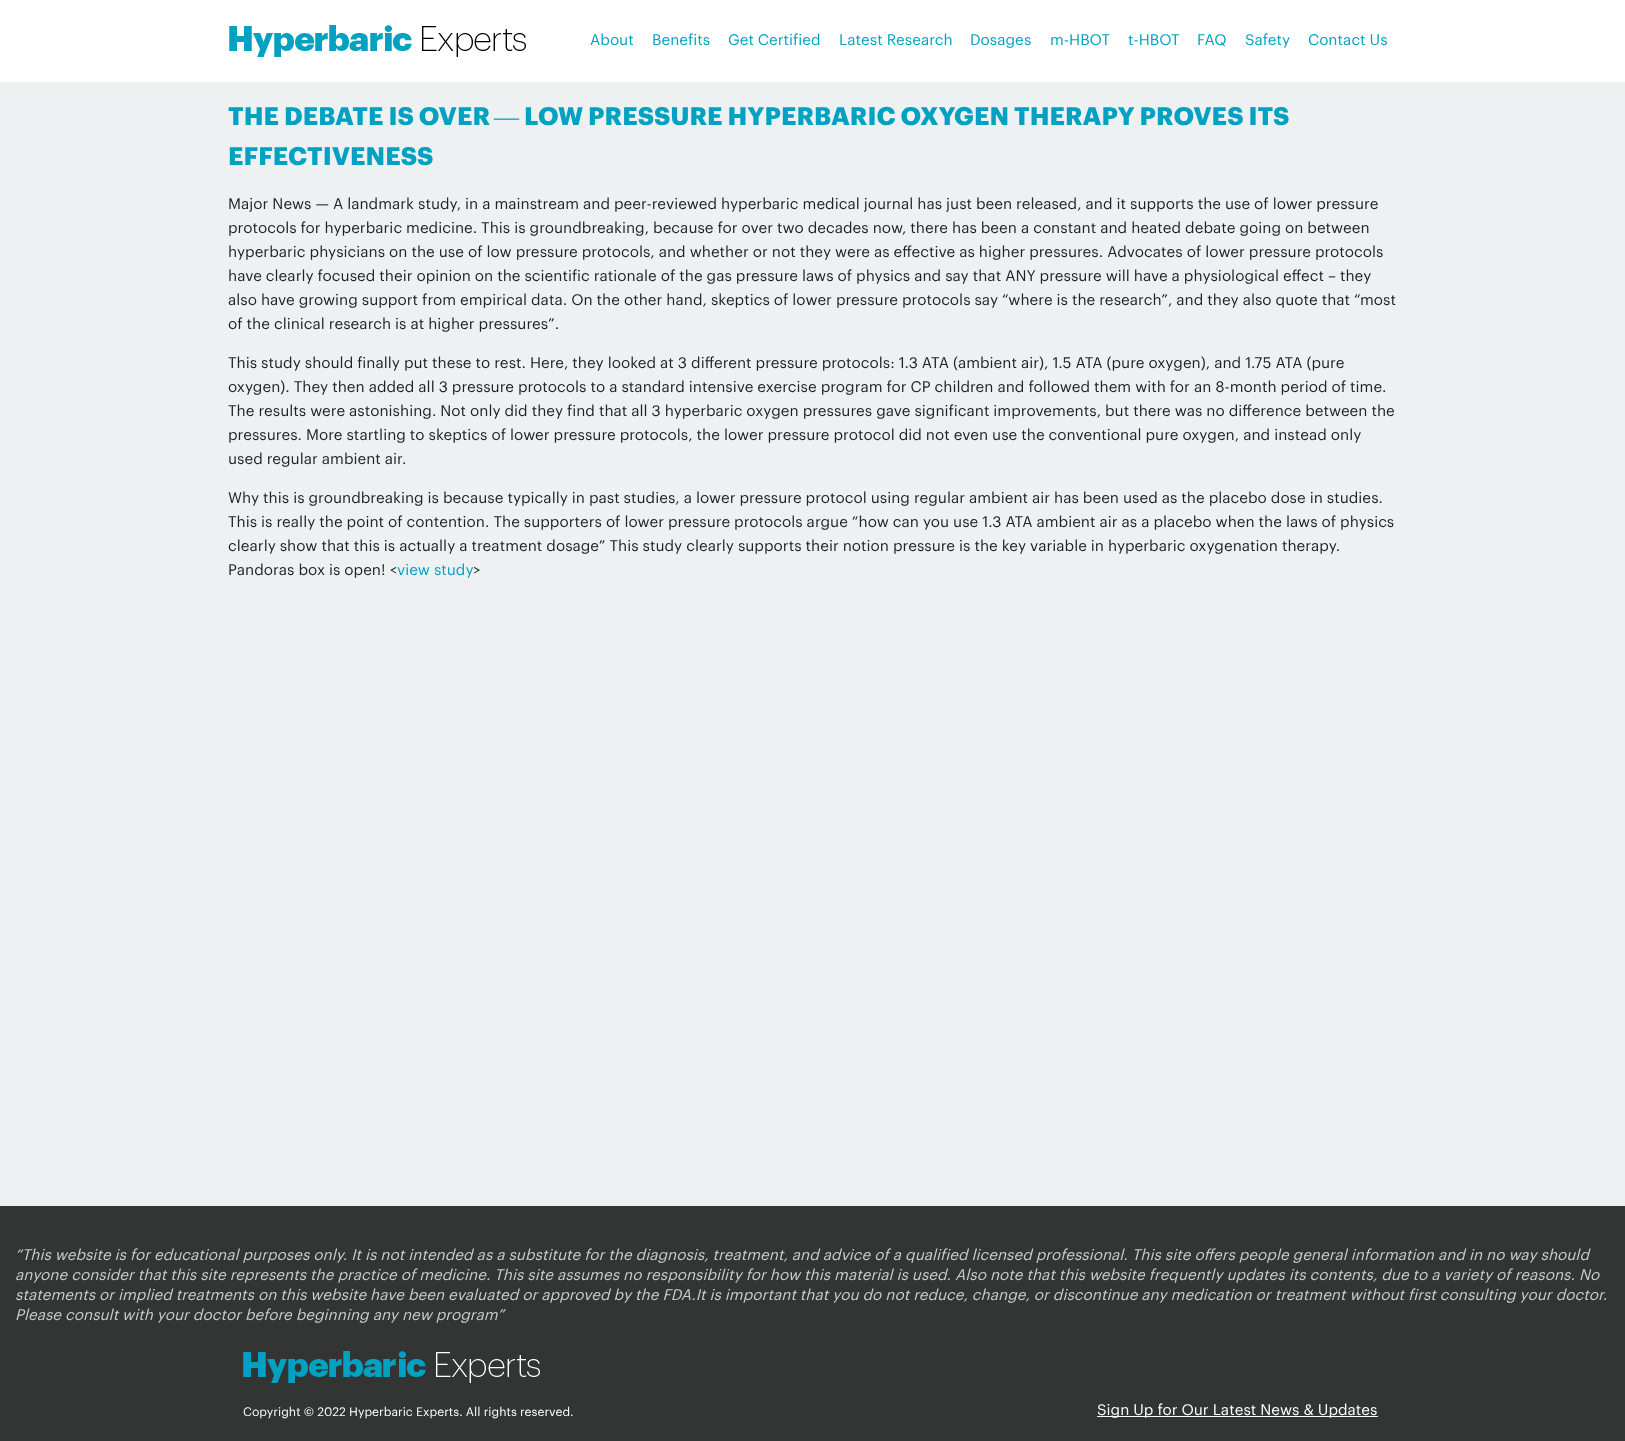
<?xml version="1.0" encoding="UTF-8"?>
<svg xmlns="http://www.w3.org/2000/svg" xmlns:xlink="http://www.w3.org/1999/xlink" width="1625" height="1441">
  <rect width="100%" height="100%" fill="#eef1f2" />
  <rect width="1625" height="82" fill="#ffffff" />
  <image x="229" y="25" width="297" height="32" xlink:href="image1.png" />
  <rect y="1206" width="1625" height="235" fill="#333534" />
  <image x="243" y="1351" width="297" height="32" xlink:href="image2.png" />
  <rect x="1097" y="1416" width="281" height="1" fill="#ffffff" />
  <text x="590" y="45" style="font-family: Graphik; font-size: 15px; fill: #00a1c1">About</text>
  <text x="652" y="45" style="font-family: Graphik; font-size: 15px; fill: #00a1c1">Benefits</text>
  <text x="728" y="45" style="font-family: Graphik; font-size: 15px; fill: #00a1c1">Get Certified</text>
  <text x="839" y="45" style="font-family: Graphik; font-size: 15px; fill: #00a1c1">Latest Research</text>
  <text x="970" y="45" style="font-family: Graphik; font-size: 15px; fill: #00a1c1">Dosages</text>
  <text x="1050" y="45" style="font-family: Graphik; font-size: 15px; fill: #00a1c1">m-HBOT</text>
  <text x="1128" y="45" style="font-family: Graphik; font-size: 15px; fill: #00a1c1">t-HBOT</text>
  <text x="1197" y="45" style="font-family: Graphik; font-size: 15px; fill: #00a1c1">FAQ</text>
  <text x="1245" y="45" style="font-family: Graphik; font-size: 15px; fill: #00a1c1">Safety</text>
  <text x="1308" y="45" style="font-family: Graphik; font-size: 15px; fill: #00a1c1">Contact Us</text>
  <text x="228" y="125" style="font-family: Graphik; font-size: 25px; font-weight: bold; fill: #00a1c1">THE DEBATE IS OVER</text>
  <text x="494" y="125" style="font-family: Liberation Serif; font-size: 25px; fill: #00a1c1">—</text>
  <text x="524" y="125" style="font-family: Graphik; font-size: 25px; font-weight: bold; fill: #00a1c1">LOW PRESSURE HYPERBARIC OXYGEN THERAPY PROVES ITS</text>
  <text x="228" y="165" style="font-family: Graphik; font-size: 25px; font-weight: bold; fill: #00a1c1">EFFECTIVENESS</text>
  <text x="228" y="209" style="font-family: Graphik; font-size: 15px; fill: #222222">Major News — A landmark study, in a mainstream and peer-reviewed hyperbaric medical journal has just been released, and it supports the use of lower pressure</text>
  <text x="228" y="233" style="font-family: Graphik; font-size: 15px; fill: #222222">protocols for hyperbaric medicine. This is groundbreaking, because for over two decades now, there has been a constant and heated debate going on between</text>
  <text x="228" y="257" style="font-family: Graphik; font-size: 15px; fill: #222222">hyperbaric physicians on the use of low pressure protocols, and whether or not they were as effective as higher pressures. Advocates of lower pressure protocols</text>
  <text x="228" y="281" style="font-family: Graphik; font-size: 15px; fill: #222222">have clearly focused their opinion on the scientific rationale of the gas pressure laws of physics and say that ANY pressure will have a physiological effect – they</text>
  <text x="228" y="305" style="font-family: Graphik; font-size: 15px; fill: #222222">also have growing support from empirical data. On the other hand, skeptics of lower pressure protocols say “where is the research”, and they also quote that “most</text>
  <text x="228" y="329" style="font-family: Graphik; font-size: 15px; fill: #222222">of the clinical research is at higher pressures”.</text>
  <text x="228" y="368" style="font-family: Graphik; font-size: 15px; fill: #222222">This study should finally put these to rest. Here, they looked at 3 different pressure protocols: 1.3 ATA (ambient air), 1.5 ATA (pure oxygen), and 1.75 ATA (pure</text>
  <text x="228" y="392" style="font-family: Graphik; font-size: 15px; fill: #222222">oxygen). They then added all 3 pressure protocols to a standard intensive exercise program for CP children and followed them with for an 8-month period of time.</text>
  <text x="228" y="416" style="font-family: Graphik; font-size: 15px; fill: #222222">The results were astonishing. Not only did they find that all 3 hyperbaric oxygen pressures gave significant improvements, but there was no difference between the</text>
  <text x="228" y="440" style="font-family: Graphik; font-size: 15px; fill: #222222">pressures. More startling to skeptics of lower pressure protocols, the lower pressure protocol did not even use the conventional pure oxygen, and instead only</text>
  <text x="228" y="464" style="font-family: Graphik; font-size: 15px; fill: #222222">used regular ambient air.</text>
  <text x="228" y="503" style="font-family: Graphik; font-size: 15px; fill: #222222">Why this is groundbreaking is because typically in past studies, a lower pressure protocol using regular ambient air has been used as the placebo dose in studies.</text>
  <text x="228" y="527" style="font-family: Graphik; font-size: 15px; fill: #222222">This is really the point of contention. The supporters of lower pressure protocols argue “how can you use 1.3 ATA ambient air as a placebo when the laws of physics</text>
  <text x="228" y="551" style="font-family: Graphik; font-size: 15px; fill: #222222">clearly show that this is actually a treatment dosage” This study clearly supports their notion pressure is the key variable in hyperbaric oxygenation therapy.</text>
  <text x="228" y="575" style="font-family: Graphik; font-size: 15px; fill: #222222">Pandoras box is open! &lt;</text>
  <text x="397" y="575" style="font-family: Graphik; font-size: 15px; fill: #00a1c1">view study</text>
  <text x="473" y="575" style="font-family: Graphik; font-size: 15px; fill: #222222">&gt;</text>
  <text x="15" y="1260" style="font-family: Graphik; font-size: 15px; font-style: italic; fill: #cccccc">“This website is for educational purposes only. It is not intended as a substitute for the diagnosis, treatment, and advice of a qualified licensed professional. This site offers people general information and in no way should</text>
  <text x="15" y="1280" style="font-family: Graphik; font-size: 15px; font-style: italic; fill: #cccccc">anyone consider that this site represents the practice of medicine. This site assumes no responsibility for how this material is used. Also note that this website frequently updates its contents, due to a variety of reasons. No</text>
  <text x="15" y="1300" style="font-family: Graphik; font-size: 15px; font-style: italic; fill: #cccccc">statements or implied treatments on this website have been evaluated or approved by the FDA.It is important that you do not reduce, change, or discontinue any medication or treatment without first consulting your doctor.</text>
  <text x="15" y="1320" style="font-family: Graphik; font-size: 15px; font-style: italic; fill: #cccccc">Please consult with your doctor before beginning any new program”</text>
  <text x="243" y="1416" style="font-family: Graphik; font-size: 12px; fill: #ffffff">Copyright © 2022 Hyperbaric Experts. All rights reserved.</text>
  <text x="1097" y="1415" style="font-family: Graphik; font-size: 15px; fill: #ffffff">Sign Up for Our Latest News &amp; Updates</text>
</svg>
